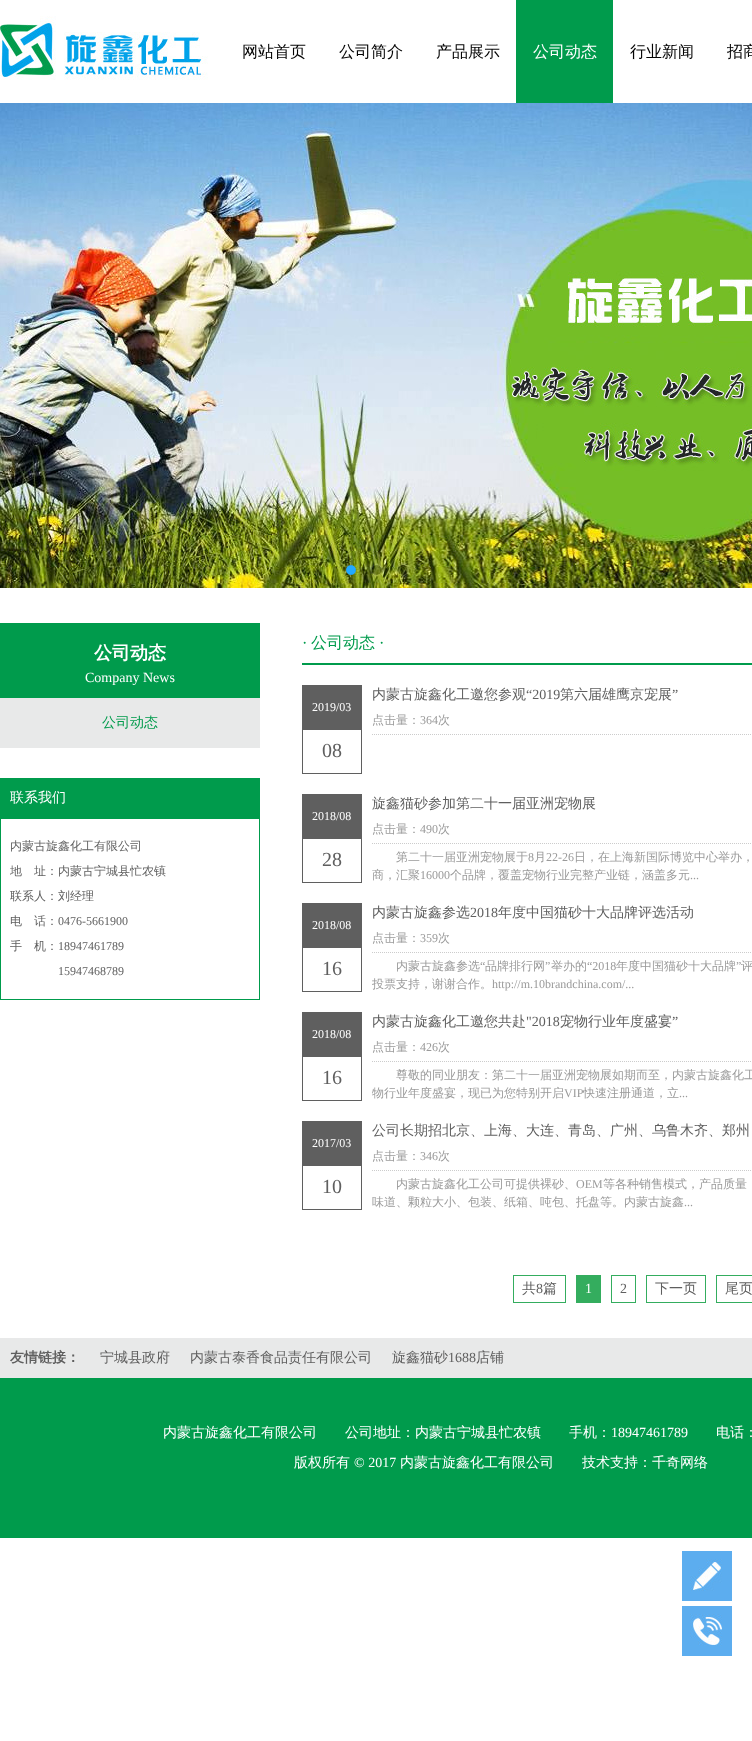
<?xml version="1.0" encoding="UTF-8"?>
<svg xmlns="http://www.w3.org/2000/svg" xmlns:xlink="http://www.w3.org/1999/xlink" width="752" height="1741">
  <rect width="100%" height="100%" fill="#ffffff" />
  <image x="0" y="16" width="208" height="64" xlink:href="image1.png" />
  <rect x="516" width="97" height="103" fill="#009b4c" />
  <image x="0" y="103" width="752" height="485" xlink:href="image2.png" />
  <image x="346" y="565" width="10" height="10" xlink:href="image3.png" />
  <image x="369" y="562" width="15" height="16" xlink:href="image4.png" />
  <image x="395" y="562" width="15" height="16" xlink:href="image5.png" />
  <rect y="623" width="260" height="75" fill="#009b4c" />
  <rect y="698" width="260" height="50" fill="#e8e9e9" />
  <rect y="778" width="260" height="40" fill="#009b4c" />
  <rect x="0.5" y="818.5" width="259" height="181" fill="none" stroke="#009b4c" />
  <rect x="302" y="663" width="450" height="2" fill="#009b4c" />
  <rect x="302" y="685" width="60" height="44" fill="#5f5f5f" />
  <rect x="302.5" y="729.5" width="59" height="44" fill="none" stroke="#5f5f5f" />
  <path d="M 372 734.5 h 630" fill="none" stroke="#cccccc" stroke-dasharray="1 1" />
  <rect x="302" y="794" width="60" height="44" fill="#5f5f5f" />
  <rect x="302.5" y="838.5" width="59" height="44" fill="none" stroke="#5f5f5f" />
  <path d="M 372 843.5 h 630" fill="none" stroke="#cccccc" stroke-dasharray="1 1" />
  <rect x="302" y="903" width="60" height="44" fill="#5f5f5f" />
  <rect x="302.5" y="947.5" width="59" height="44" fill="none" stroke="#5f5f5f" />
  <path d="M 372 952.5 h 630" fill="none" stroke="#cccccc" stroke-dasharray="1 1" />
  <rect x="302" y="1012" width="60" height="44" fill="#5f5f5f" />
  <rect x="302.5" y="1056.5" width="59" height="44" fill="none" stroke="#5f5f5f" />
  <path d="M 372 1061.5 h 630" fill="none" stroke="#cccccc" stroke-dasharray="1 1" />
  <rect x="302" y="1121" width="60" height="44" fill="#5f5f5f" />
  <rect x="302.5" y="1165.5" width="59" height="44" fill="none" stroke="#5f5f5f" />
  <path d="M 372 1170.5 h 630" fill="none" stroke="#cccccc" stroke-dasharray="1 1" />
  <rect x="513.5" y="1275.5" width="52" height="27" fill="none" stroke="#34ad5e" />
  <rect x="576" y="1275" width="25" height="28" fill="#34ad5e" />
  <rect x="611.5" y="1275.5" width="24" height="27" fill="none" stroke="#34ad5e" />
  <rect x="646.5" y="1275.5" width="59" height="27" fill="none" stroke="#34ad5e" />
  <rect x="716.5" y="1275.5" width="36" height="27" fill="none" stroke="#34ad5e" />
  <rect y="1338" width="752" height="40" fill="#e8e9e9" />
  <rect y="1378" width="752" height="160" fill="#009b4c" />
  <image x="682" y="1551" width="50" height="50" xlink:href="image6.png" />
  <image x="682" y="1606" width="50" height="50" xlink:href="image7.png" />
  <text x="242" y="57" style="font-family: WenQuanYi Zen Hei; font-size: 16px; font-weight: 500; fill: #030303">网站首页</text>
  <text x="339" y="57" style="font-family: WenQuanYi Zen Hei; font-size: 16px; font-weight: 500; fill: #030303">公司简介</text>
  <text x="436" y="57" style="font-family: WenQuanYi Zen Hei; font-size: 16px; font-weight: 500; fill: #030303">产品展示</text>
  <text x="533" y="57" style="font-family: WenQuanYi Zen Hei; font-size: 16px; font-weight: 500; fill: #ffffff">公司动态</text>
  <text x="630" y="57" style="font-family: WenQuanYi Zen Hei; font-size: 16px; font-weight: 500; fill: #030303">行业新闻</text>
  <text x="727" y="57" style="font-family: WenQuanYi Zen Hei; font-size: 16px; font-weight: 500; fill: #030303">招商</text>
  <text x="94" y="659" style="font-family: WenQuanYi Zen Hei; font-size: 18px; font-weight: bold; fill: #ffffff">公司动态</text>
  <text x="85" y="682" style="font-family: Liberation Serif; font-size: 14px; fill: #ffffff">Company News</text>
  <text x="102" y="727" style="font-family: WenQuanYi Zen Hei; font-size: 14px; font-weight: 500; fill: #009b4c">公司动态</text>
  <text x="10" y="802" style="font-family: WenQuanYi Zen Hei; font-size: 14px; font-weight: 500; fill: #ffffff">联系我们</text>
  <text x="10" y="850" style="font-family: WenQuanYi Zen Hei; font-size: 12px; font-weight: 500; fill: #5f5f5f">内蒙古旋鑫化工有限公司</text>
  <text x="10" y="875" style="font-family: WenQuanYi Zen Hei; font-size: 12px; font-weight: 500; fill: #5f5f5f">地　址：内蒙古宁城县忙农镇</text>
  <text x="10" y="900" style="font-family: WenQuanYi Zen Hei; font-size: 12px; font-weight: 500; fill: #5f5f5f">联系人：刘经理</text>
  <text x="10" y="925" style="font-family: WenQuanYi Zen Hei; font-size: 12px; font-weight: 500; fill: #5f5f5f">电　话：</text>
  <text x="58" y="925" style="font-family: Liberation Serif; font-size: 12px; fill: #5f5f5f">0476-5661900</text>
  <text x="10" y="950" style="font-family: WenQuanYi Zen Hei; font-size: 12px; font-weight: 500; fill: #5f5f5f">手　机：</text>
  <text x="58" y="950" style="font-family: Liberation Serif; font-size: 12px; fill: #5f5f5f">18947461789</text>
  <text x="58" y="975" style="font-family: Liberation Serif; font-size: 12px; fill: #5f5f5f">15947468789</text>
  <text x="302" y="648" style="font-family: Liberation Serif; font-size: 16px; fill: #009b4c">·</text>
  <text x="311" y="648" style="font-family: WenQuanYi Zen Hei; font-size: 16px; font-weight: 500; fill: #009b4c">公司动态</text>
  <text x="379" y="648" style="font-family: Liberation Serif; font-size: 16px; fill: #009b4c">·</text>
  <text x="312" y="711" style="font-family: Liberation Serif; font-size: 12px; fill: #ffffff">2019/03</text>
  <text x="322" y="757" style="font-family: Liberation Serif; font-size: 20px; fill: #5f5f5f">08</text>
  <text x="372" y="699" style="font-family: WenQuanYi Zen Hei; font-size: 14px; font-weight: 500; fill: #5f5f5f">内蒙古旋鑫化工邀您参观</text>
  <text x="526" y="699" style="font-family: Liberation Serif; font-size: 14px; fill: #5f5f5f">“2019</text>
  <text x="560" y="699" style="font-family: WenQuanYi Zen Hei; font-size: 14px; font-weight: 500; fill: #5f5f5f">第六届雄鹰京宠展</text>
  <text x="672" y="699" style="font-family: Liberation Serif; font-size: 14px; fill: #5f5f5f">”</text>
  <text x="372" y="724" style="font-family: WenQuanYi Zen Hei; font-size: 12px; font-weight: 500; fill: #9a9a9a">点击量：</text>
  <text x="420" y="724" style="font-family: Liberation Serif; font-size: 12px; fill: #9a9a9a">364</text>
  <text x="438" y="724" style="font-family: WenQuanYi Zen Hei; font-size: 12px; font-weight: 500; fill: #9a9a9a">次</text>
  <text x="312" y="820" style="font-family: Liberation Serif; font-size: 12px; fill: #ffffff">2018/08</text>
  <text x="322" y="866" style="font-family: Liberation Serif; font-size: 20px; fill: #5f5f5f">28</text>
  <text x="372" y="808" style="font-family: WenQuanYi Zen Hei; font-size: 14px; font-weight: 500; fill: #5f5f5f">旋鑫猫砂参加第二十一届亚洲宠物展</text>
  <text x="372" y="833" style="font-family: WenQuanYi Zen Hei; font-size: 12px; font-weight: 500; fill: #9a9a9a">点击量：</text>
  <text x="420" y="833" style="font-family: Liberation Serif; font-size: 12px; fill: #9a9a9a">490</text>
  <text x="438" y="833" style="font-family: WenQuanYi Zen Hei; font-size: 12px; font-weight: 500; fill: #9a9a9a">次</text>
  <text x="396" y="861" style="font-family: WenQuanYi Zen Hei; font-size: 12px; font-weight: 500; fill: #9a9a9a">第二十一届亚洲宠物展于</text>
  <text x="528" y="861" style="font-family: Liberation Serif; font-size: 12px; fill: #9a9a9a">8</text>
  <text x="534" y="861" style="font-family: WenQuanYi Zen Hei; font-size: 12px; font-weight: 500; fill: #9a9a9a">月</text>
  <text x="546" y="861" style="font-family: Liberation Serif; font-size: 12px; fill: #9a9a9a">22-26</text>
  <text x="574" y="861" style="font-family: WenQuanYi Zen Hei; font-size: 12px; font-weight: 500; fill: #9a9a9a">日，在上海新国际博览中心举办，</text>
  <text x="372" y="879" style="font-family: WenQuanYi Zen Hei; font-size: 12px; font-weight: 500; fill: #9a9a9a">商，汇聚</text>
  <text x="420" y="879" style="font-family: Liberation Serif; font-size: 12px; fill: #9a9a9a">16000</text>
  <text x="450" y="879" style="font-family: WenQuanYi Zen Hei; font-size: 12px; font-weight: 500; fill: #9a9a9a">个品牌，覆盖宠物行业完整产业链，涵盖多元</text>
  <text x="690" y="879" style="font-family: Liberation Serif; font-size: 12px; fill: #9a9a9a">...</text>
  <text x="312" y="929" style="font-family: Liberation Serif; font-size: 12px; fill: #ffffff">2018/08</text>
  <text x="322" y="975" style="font-family: Liberation Serif; font-size: 20px; fill: #5f5f5f">16</text>
  <text x="372" y="917" style="font-family: WenQuanYi Zen Hei; font-size: 14px; font-weight: 500; fill: #5f5f5f">内蒙古旋鑫参选</text>
  <text x="470" y="917" style="font-family: Liberation Serif; font-size: 14px; fill: #5f5f5f">2018</text>
  <text x="498" y="917" style="font-family: WenQuanYi Zen Hei; font-size: 14px; font-weight: 500; fill: #5f5f5f">年度中国猫砂十大品牌评选活动</text>
  <text x="372" y="942" style="font-family: WenQuanYi Zen Hei; font-size: 12px; font-weight: 500; fill: #9a9a9a">点击量：</text>
  <text x="420" y="942" style="font-family: Liberation Serif; font-size: 12px; fill: #9a9a9a">359</text>
  <text x="438" y="942" style="font-family: WenQuanYi Zen Hei; font-size: 12px; font-weight: 500; fill: #9a9a9a">次</text>
  <text x="396" y="970" style="font-family: WenQuanYi Zen Hei; font-size: 12px; font-weight: 500; fill: #9a9a9a">内蒙古旋鑫参选</text>
  <text x="480" y="970" style="font-family: Liberation Serif; font-size: 12px; fill: #9a9a9a">“</text>
  <text x="485" y="970" style="font-family: WenQuanYi Zen Hei; font-size: 12px; font-weight: 500; fill: #9a9a9a">品牌排行网</text>
  <text x="545" y="970" style="font-family: Liberation Serif; font-size: 12px; fill: #9a9a9a">”</text>
  <text x="551" y="970" style="font-family: WenQuanYi Zen Hei; font-size: 12px; font-weight: 500; fill: #9a9a9a">举办的</text>
  <text x="587" y="970" style="font-family: Liberation Serif; font-size: 12px; fill: #9a9a9a">“2018</text>
  <text x="616" y="970" style="font-family: WenQuanYi Zen Hei; font-size: 12px; font-weight: 500; fill: #9a9a9a">年度中国猫砂十大品牌</text>
  <text x="736" y="970" style="font-family: Liberation Serif; font-size: 12px; fill: #9a9a9a">”</text>
  <text x="741" y="970" style="font-family: WenQuanYi Zen Hei; font-size: 12px; font-weight: 500; fill: #9a9a9a">评</text>
  <text x="372" y="988" style="font-family: WenQuanYi Zen Hei; font-size: 12px; font-weight: 500; fill: #9a9a9a">投票支持，谢谢合作。</text>
  <text x="492" y="988" style="font-family: Liberation Serif; font-size: 12px; fill: #9a9a9a">http://m.10brandchina.com/...</text>
  <text x="312" y="1038" style="font-family: Liberation Serif; font-size: 12px; fill: #ffffff">2018/08</text>
  <text x="322" y="1084" style="font-family: Liberation Serif; font-size: 20px; fill: #5f5f5f">16</text>
  <text x="372" y="1026" style="font-family: WenQuanYi Zen Hei; font-size: 14px; font-weight: 500; fill: #5f5f5f">内蒙古旋鑫化工邀您共赴</text>
  <text x="526" y="1026" style="font-family: Liberation Serif; font-size: 14px; fill: #5f5f5f">"2018</text>
  <text x="560" y="1026" style="font-family: WenQuanYi Zen Hei; font-size: 14px; font-weight: 500; fill: #5f5f5f">宠物行业年度盛宴</text>
  <text x="672" y="1026" style="font-family: Liberation Serif; font-size: 14px; fill: #5f5f5f">”</text>
  <text x="372" y="1051" style="font-family: WenQuanYi Zen Hei; font-size: 12px; font-weight: 500; fill: #9a9a9a">点击量：</text>
  <text x="420" y="1051" style="font-family: Liberation Serif; font-size: 12px; fill: #9a9a9a">426</text>
  <text x="438" y="1051" style="font-family: WenQuanYi Zen Hei; font-size: 12px; font-weight: 500; fill: #9a9a9a">次</text>
  <text x="396" y="1079" style="font-family: WenQuanYi Zen Hei; font-size: 12px; font-weight: 500; fill: #9a9a9a">尊敬的同业朋友：第二十一届亚洲宠物展如期而至，内蒙古旋鑫化工</text>
  <text x="372" y="1097" style="font-family: WenQuanYi Zen Hei; font-size: 12px; font-weight: 500; fill: #9a9a9a">物行业年度盛宴，现已为您特别开启</text>
  <text x="564" y="1097" style="font-family: Liberation Serif; font-size: 12px; fill: #9a9a9a">VIP</text>
  <text x="583" y="1097" style="font-family: WenQuanYi Zen Hei; font-size: 12px; font-weight: 500; fill: #9a9a9a">快速注册通道，立</text>
  <text x="679" y="1097" style="font-family: Liberation Serif; font-size: 12px; fill: #9a9a9a">...</text>
  <text x="312" y="1147" style="font-family: Liberation Serif; font-size: 12px; fill: #ffffff">2017/03</text>
  <text x="322" y="1193" style="font-family: Liberation Serif; font-size: 20px; fill: #5f5f5f">10</text>
  <text x="372" y="1135" style="font-family: WenQuanYi Zen Hei; font-size: 14px; font-weight: 500; fill: #5f5f5f">公司长期招北京、上海、大连、青岛、广州、乌鲁木齐、郑州</text>
  <text x="372" y="1160" style="font-family: WenQuanYi Zen Hei; font-size: 12px; font-weight: 500; fill: #9a9a9a">点击量：</text>
  <text x="420" y="1160" style="font-family: Liberation Serif; font-size: 12px; fill: #9a9a9a">346</text>
  <text x="438" y="1160" style="font-family: WenQuanYi Zen Hei; font-size: 12px; font-weight: 500; fill: #9a9a9a">次</text>
  <text x="396" y="1188" style="font-family: WenQuanYi Zen Hei; font-size: 12px; font-weight: 500; fill: #9a9a9a">内蒙古旋鑫化工公司可提供裸砂、</text>
  <text x="576" y="1188" style="font-family: Liberation Serif; font-size: 12px; fill: #9a9a9a">OEM</text>
  <text x="603" y="1188" style="font-family: WenQuanYi Zen Hei; font-size: 12px; font-weight: 500; fill: #9a9a9a">等各种销售模式，产品质量</text>
  <text x="372" y="1206" style="font-family: WenQuanYi Zen Hei; font-size: 12px; font-weight: 500; fill: #9a9a9a">味道、颗粒大小、包装、纸箱、吨包、托盘等。内蒙古旋鑫</text>
  <text x="684" y="1206" style="font-family: Liberation Serif; font-size: 12px; fill: #9a9a9a">...</text>
  <text x="522" y="1293" style="font-family: WenQuanYi Zen Hei; font-size: 14px; font-weight: 500; fill: #5f5f5f">共</text>
  <text x="536" y="1293" style="font-family: Liberation Serif; font-size: 14px; fill: #5f5f5f">8</text>
  <text x="543" y="1293" style="font-family: WenQuanYi Zen Hei; font-size: 14px; font-weight: 500; fill: #5f5f5f">篇</text>
  <text x="585" y="1293" style="font-family: Liberation Serif; font-size: 14px; fill: #ffffff">1</text>
  <text x="620" y="1293" style="font-family: Liberation Serif; font-size: 14px; fill: #5f5f5f">2</text>
  <text x="655" y="1293" style="font-family: WenQuanYi Zen Hei; font-size: 14px; font-weight: 500; fill: #5f5f5f">下一页</text>
  <text x="725" y="1293" style="font-family: WenQuanYi Zen Hei; font-size: 14px; font-weight: 500; fill: #5f5f5f">尾页</text>
  <text x="10" y="1362" style="font-family: WenQuanYi Zen Hei; font-size: 14px; font-weight: bold; fill: #5f5f5f">友情链接：</text>
  <text x="100" y="1362" style="font-family: WenQuanYi Zen Hei; font-size: 14px; font-weight: 500; fill: #5f5f5f">宁城县政府</text>
  <text x="190" y="1362" style="font-family: WenQuanYi Zen Hei; font-size: 14px; font-weight: 500; fill: #5f5f5f">内蒙古泰香食品责任有限公司</text>
  <text x="392" y="1362" style="font-family: WenQuanYi Zen Hei; font-size: 14px; font-weight: 500; fill: #5f5f5f">旋鑫猫砂</text>
  <text x="448" y="1362" style="font-family: Liberation Serif; font-size: 14px; fill: #5f5f5f">1688</text>
  <text x="476" y="1362" style="font-family: WenQuanYi Zen Hei; font-size: 14px; font-weight: 500; fill: #5f5f5f">店铺</text>
  <text x="163" y="1437" style="font-family: WenQuanYi Zen Hei; font-size: 14px; font-weight: 500; fill: #ffffff">内蒙古旋鑫化工有限公司　　公司地址：内蒙古宁城县忙农镇　　手机：</text>
  <text x="611" y="1437" style="font-family: Liberation Serif; font-size: 14px; fill: #ffffff">18947461789</text>
  <text x="716" y="1437" style="font-family: WenQuanYi Zen Hei; font-size: 14px; font-weight: 500; fill: #ffffff">电话：</text>
  <text x="294" y="1467" style="font-family: WenQuanYi Zen Hei; font-size: 14px; font-weight: 500; fill: #ffffff">版权所有</text>
  <text x="354" y="1467" style="font-family: Liberation Serif; font-size: 14px; fill: #ffffff">© 2017</text>
  <text x="400" y="1467" style="font-family: WenQuanYi Zen Hei; font-size: 14px; font-weight: 500; fill: #ffffff">内蒙古旋鑫化工有限公司　　技术支持：千奇网络</text>
</svg>
